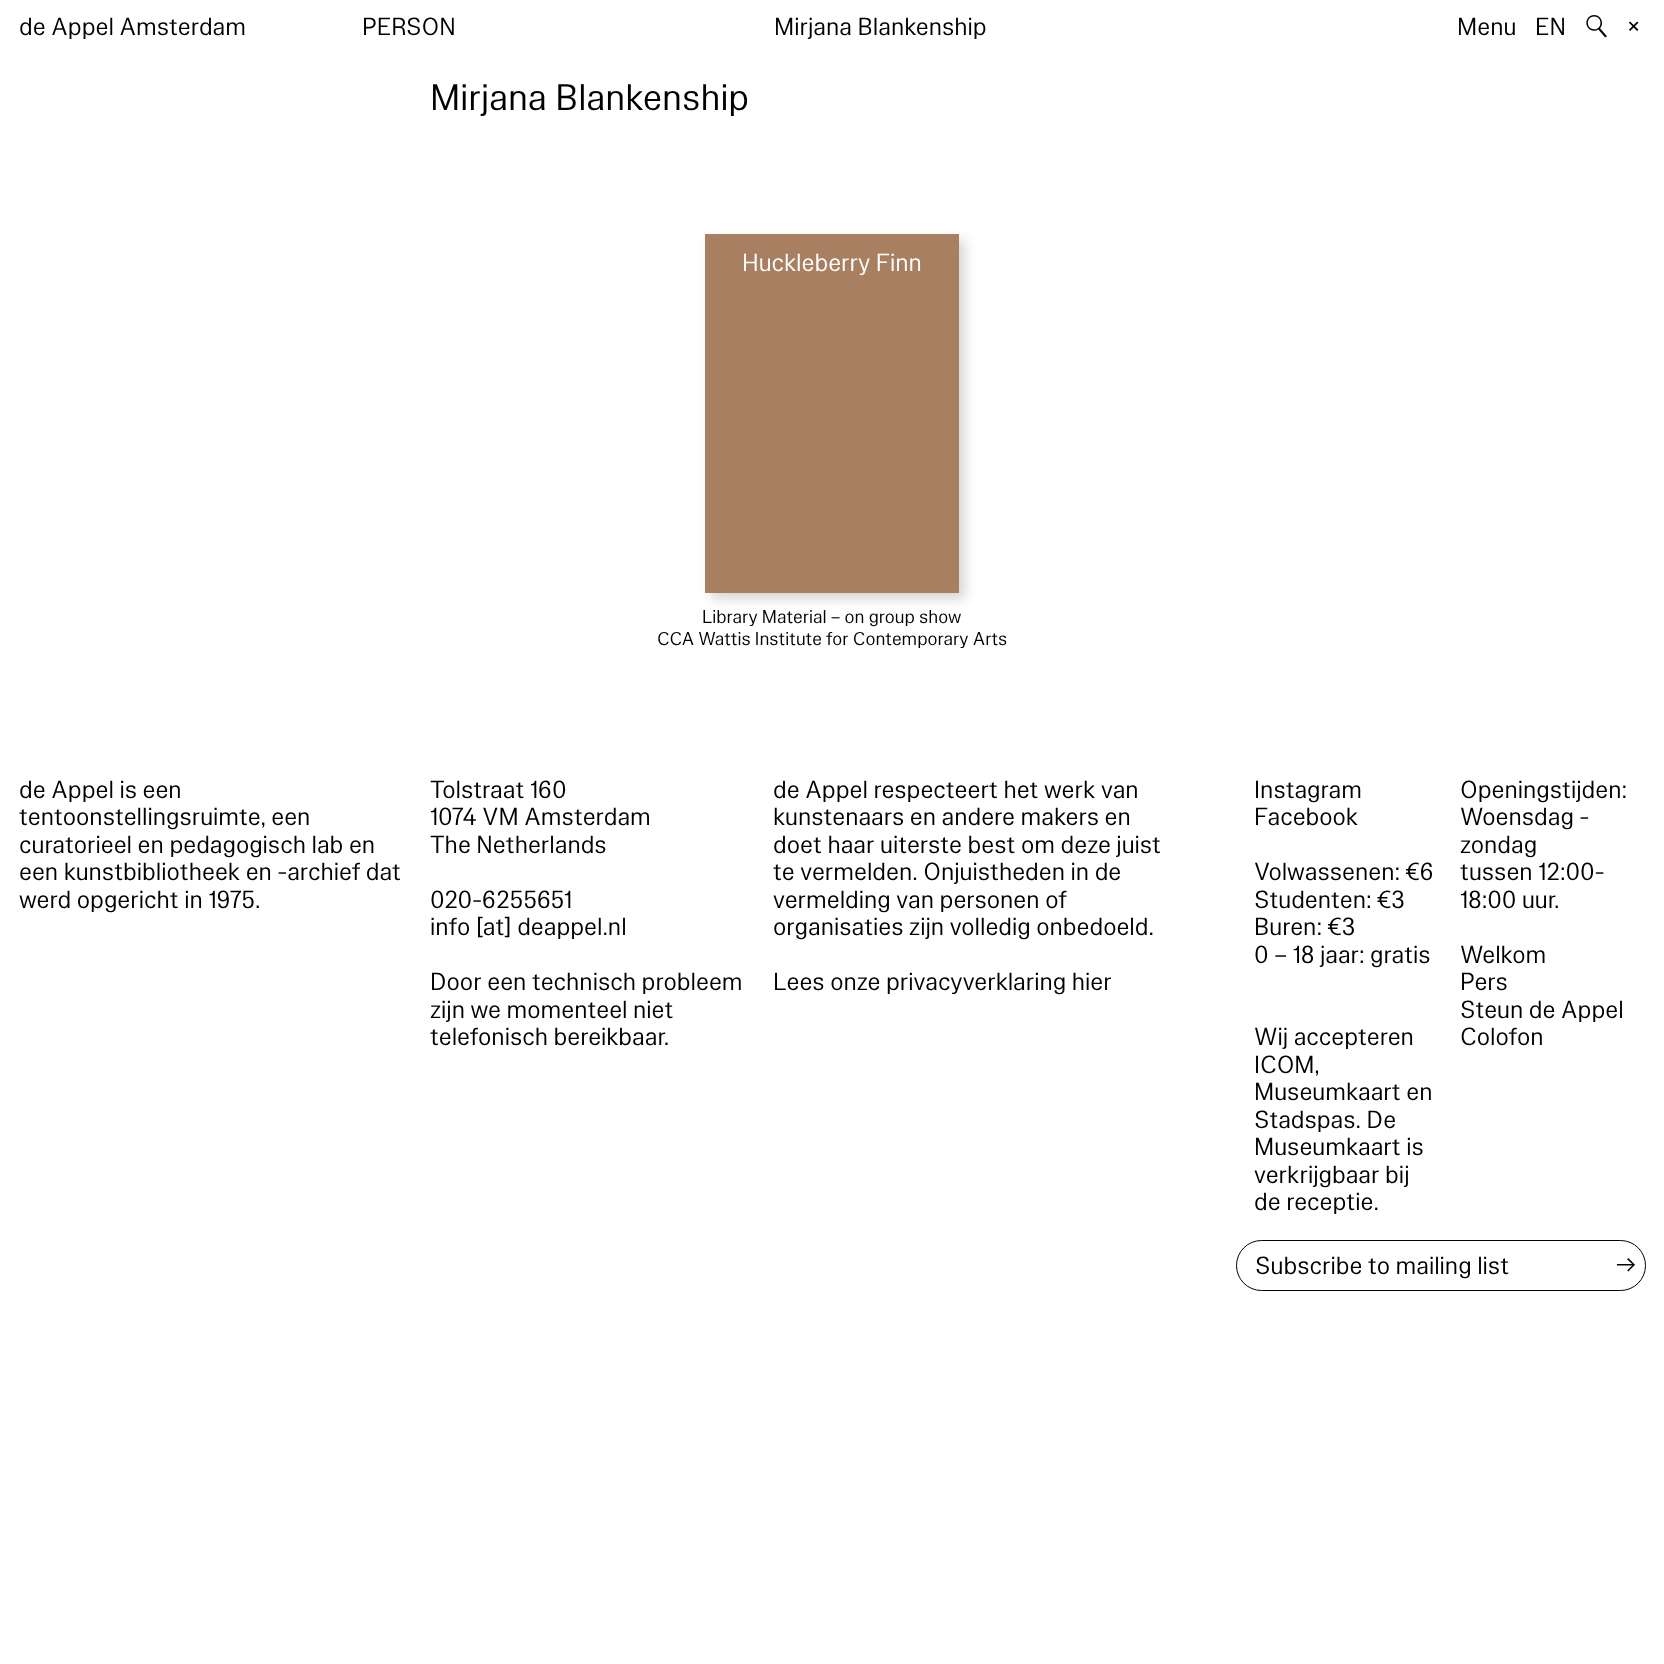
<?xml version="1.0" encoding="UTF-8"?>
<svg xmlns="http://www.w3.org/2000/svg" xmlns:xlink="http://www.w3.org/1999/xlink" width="1664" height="1664">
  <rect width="100%" height="100%" fill="#ffffff" />
  <rect x="711" y="240" width="254" height="359" fill="#000000" fill-opacity="0.16" filter="blur(6px)" />
  <rect x="705" y="234" width="254" height="359" fill="#a87f61" />
  <rect x="1236.5" y="1240.5" width="409" height="50" rx="25" fill="none" stroke="#000000" />
  <text x="19" y="35" style="font-family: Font; font-size: 25px; fill: #000000">de Appel Amsterdam</text>
  <text x="362" y="35" style="font-family: Font; font-size: 25px; fill: #000000">PERSON</text>
  <text x="774" y="35" style="font-family: Font; font-size: 25px; fill: #000000">Mirjana Blankenship</text>
  <text x="1457" y="35" style="font-family: Font; font-size: 25px; fill: #000000">Menu</text>
  <text x="1535" y="35" style="font-family: Font; font-size: 25px; fill: #000000">EN</text>
  <text x="1585" y="40" style="font-family: Font; font-size: 40px; fill: #000000">🔍</text>
  <text x="1628" y="35" style="font-family: Font; font-size: 28px; fill: #000000">×</text>
  <text x="430" y="110" style="font-family: Font; font-size: 37.5px; fill: #000000">Mirjana Blankenship</text>
  <text x="742" y="271" style="font-family: Font; font-size: 25px; fill: #ffffff">Huckleberry Finn</text>
  <text x="702" y="623" style="font-family: Font; font-size: 18.75px; fill: #000000">Library Material – on group show</text>
  <text x="657" y="645" style="font-family: Font; font-size: 18.75px; fill: #000000">CCA Wattis Institute for Contemporary Arts</text>
  <text x="19" y="798" style="font-family: Font; font-size: 25px; fill: #000000">de Appel is een</text>
  <text x="19" y="825" style="font-family: Font; font-size: 25px; fill: #000000">tentoonstellingsruimte, een</text>
  <text x="19" y="853" style="font-family: Font; font-size: 25px; fill: #000000">curatorieel en pedagogisch lab en</text>
  <text x="19" y="880" style="font-family: Font; font-size: 25px; fill: #000000">een kunstbibliotheek en -archief dat</text>
  <text x="19" y="908" style="font-family: Font; font-size: 25px; fill: #000000">werd opgericht in 1975.</text>
  <text x="430" y="798" style="font-family: Font; font-size: 25px; fill: #000000">Tolstraat 160</text>
  <text x="430" y="825" style="font-family: Font; font-size: 25px; fill: #000000">1074 VM Amsterdam</text>
  <text x="430" y="853" style="font-family: Font; font-size: 25px; fill: #000000">The Netherlands</text>
  <text x="430" y="908" style="font-family: Font; font-size: 25px; fill: #000000">020-6255651</text>
  <text x="430" y="935" style="font-family: Font; font-size: 25px; fill: #000000">info [at] deappel.nl</text>
  <text x="430" y="990" style="font-family: Font; font-size: 25px; fill: #000000">Door een technisch probleem</text>
  <text x="430" y="1018" style="font-family: Font; font-size: 25px; fill: #000000">zijn we momenteel niet</text>
  <text x="430" y="1045" style="font-family: Font; font-size: 25px; fill: #000000">telefonisch bereikbaar.</text>
  <text x="773" y="798" style="font-family: Font; font-size: 25px; fill: #000000">de Appel respecteert het werk van</text>
  <text x="773" y="825" style="font-family: Font; font-size: 25px; fill: #000000">kunstenaars en andere makers en</text>
  <text x="773" y="853" style="font-family: Font; font-size: 25px; fill: #000000">doet haar uiterste best om deze juist</text>
  <text x="773" y="880" style="font-family: Font; font-size: 25px; fill: #000000">te vermelden. Onjuistheden in de</text>
  <text x="773" y="908" style="font-family: Font; font-size: 25px; fill: #000000">vermelding van personen of</text>
  <text x="773" y="935" style="font-family: Font; font-size: 25px; fill: #000000">organisaties zijn volledig onbedoeld.</text>
  <text x="773" y="990" style="font-family: Font; font-size: 25px; fill: #000000">Lees onze privacyverklaring hier</text>
  <text x="1254" y="798" style="font-family: Font; font-size: 25px; fill: #000000">Instagram</text>
  <text x="1254" y="825" style="font-family: Font; font-size: 25px; fill: #000000">Facebook</text>
  <text x="1254" y="880" style="font-family: Font; font-size: 25px; fill: #000000">Volwassenen: €6</text>
  <text x="1254" y="908" style="font-family: Font; font-size: 25px; fill: #000000">Studenten: €3</text>
  <text x="1254" y="935" style="font-family: Font; font-size: 25px; fill: #000000">Buren: €3</text>
  <text x="1254" y="963" style="font-family: Font; font-size: 25px; fill: #000000">0 – 18 jaar: gratis</text>
  <text x="1254" y="1045" style="font-family: Font; font-size: 25px; fill: #000000">Wij accepteren</text>
  <text x="1254" y="1073" style="font-family: Font; font-size: 25px; fill: #000000">ICOM,</text>
  <text x="1254" y="1100" style="font-family: Font; font-size: 25px; fill: #000000">Museumkaart en</text>
  <text x="1254" y="1128" style="font-family: Font; font-size: 25px; fill: #000000">Stadspas. De</text>
  <text x="1254" y="1155" style="font-family: Font; font-size: 25px; fill: #000000">Museumkaart is</text>
  <text x="1254" y="1183" style="font-family: Font; font-size: 25px; fill: #000000">verkrijgbaar bij</text>
  <text x="1254" y="1210" style="font-family: Font; font-size: 25px; fill: #000000">de receptie.</text>
  <text x="1460" y="798" style="font-family: Font; font-size: 25px; fill: #000000">Openingstijden:</text>
  <text x="1460" y="825" style="font-family: Font; font-size: 25px; fill: #000000">Woensdag -</text>
  <text x="1460" y="853" style="font-family: Font; font-size: 25px; fill: #000000">zondag</text>
  <text x="1460" y="880" style="font-family: Font; font-size: 25px; fill: #000000">tussen 12:00-</text>
  <text x="1460" y="908" style="font-family: Font; font-size: 25px; fill: #000000">18:00 uur.</text>
  <text x="1460" y="963" style="font-family: Font; font-size: 25px; fill: #000000">Welkom</text>
  <text x="1460" y="990" style="font-family: Font; font-size: 25px; fill: #000000">Pers</text>
  <text x="1460" y="1018" style="font-family: Font; font-size: 25px; fill: #000000">Steun de Appel</text>
  <text x="1460" y="1045" style="font-family: Font; font-size: 25px; fill: #000000">Colofon</text>
  <text x="1255" y="1274" style="font-family: Font; font-size: 25px; fill: #000000">Subscribe to mailing list</text>
  <text x="1615" y="1273" style="font-family: Font; font-size: 25px; fill: #000000">→</text>
</svg>
